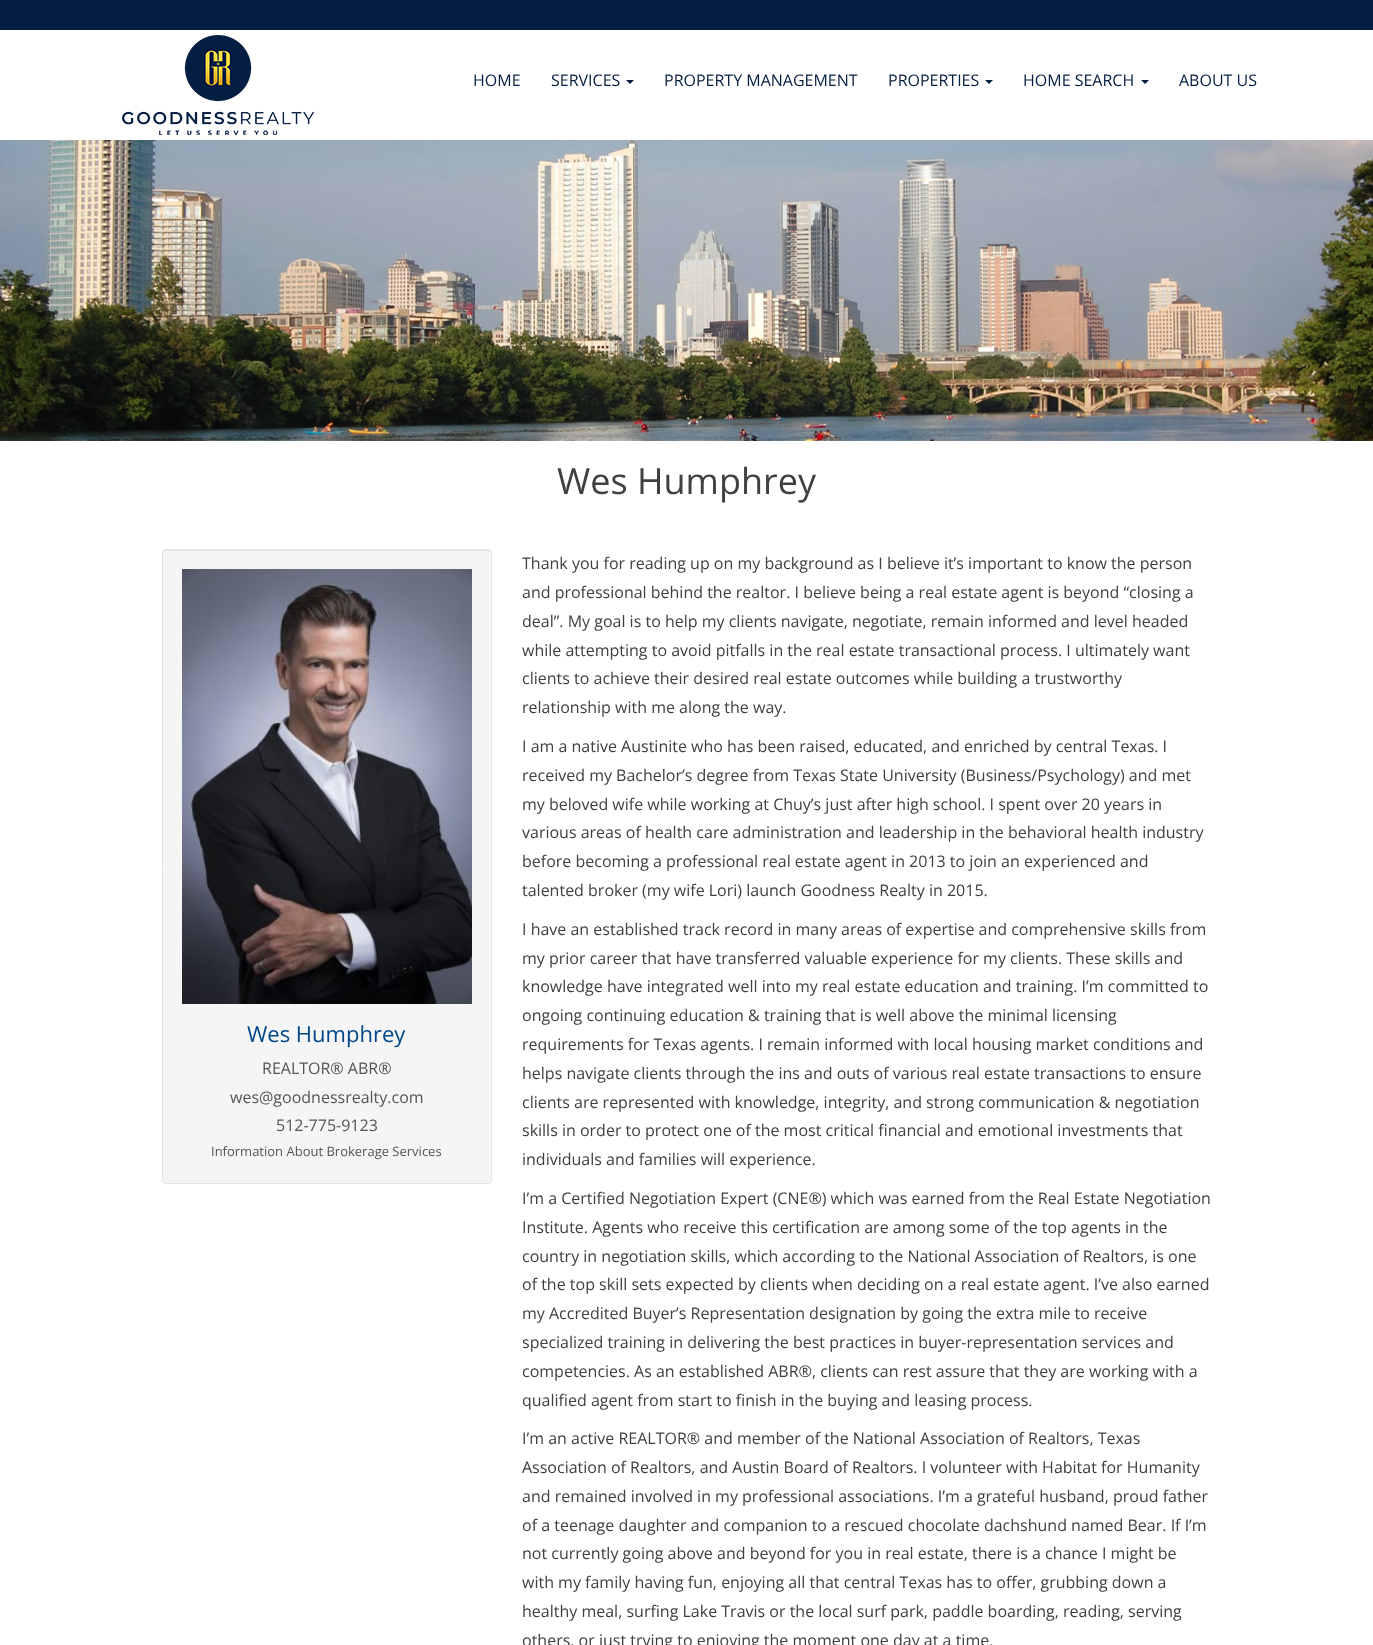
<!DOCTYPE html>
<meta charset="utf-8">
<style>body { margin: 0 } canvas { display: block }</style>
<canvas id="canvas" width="1373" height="1645"></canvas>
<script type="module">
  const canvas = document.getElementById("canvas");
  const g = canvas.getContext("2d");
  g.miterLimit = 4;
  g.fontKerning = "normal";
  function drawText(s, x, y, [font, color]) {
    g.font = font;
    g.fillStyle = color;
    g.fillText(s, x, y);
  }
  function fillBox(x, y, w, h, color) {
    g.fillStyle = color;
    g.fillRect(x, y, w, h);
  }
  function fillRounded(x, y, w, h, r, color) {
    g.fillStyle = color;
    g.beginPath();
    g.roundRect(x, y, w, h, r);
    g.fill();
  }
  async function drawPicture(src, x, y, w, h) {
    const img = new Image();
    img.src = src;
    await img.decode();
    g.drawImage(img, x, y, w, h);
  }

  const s1 = ["16px Open Sans", "#041E42"];
  const s2 = ["36px Open Sans", "#404040"];
  const s3 = ["22px Open Sans", "#004789"];
  const s4 = ["16px Open Sans", "#555555"];
  const s5 = ["13px Open Sans", "#555555"];
  const s6 = ["16px Open Sans", "#404040"];

  fillBox(0, 0, 1373, 1645, "#FFFFFF");
  fillBox(0, 0, 1373, 30, "#041E42");
  await drawPicture("pic1.png", 122, 35, 192, 100);
  drawText("HOME", 473, 86, s1);
  drawText("SERVICES", 551, 86, s1);
  g.beginPath();
  g.moveTo(626, 80);
  g.lineTo(634, 80);
  g.lineTo(630, 84);
  g.closePath();
  g.fill();
  drawText("PROPERTY MANAGEMENT", 664, 86, s1);
  drawText("PROPERTIES", 888, 86, s1);
  g.beginPath();
  g.moveTo(985, 80);
  g.lineTo(993, 80);
  g.lineTo(989, 84);
  g.closePath();
  g.fill();
  drawText("HOME SEARCH", 1023, 86, s1);
  g.beginPath();
  g.moveTo(1141, 80);
  g.lineTo(1149, 80);
  g.lineTo(1145, 84);
  g.closePath();
  g.fill();
  drawText("ABOUT US", 1179, 86, s1);
  await drawPicture("pic2.png", 0, 140, 1373, 301);
  drawText("Wes Humphrey", 557, 494, s2);
  fillRounded(162, 549, 330, 635, 4, "#F5F5F5");
  g.fillStyle = "#E9E9E9";
  g.beginPath();
  g.moveTo(166, 551);
  g.lineTo(488, 551);
  g.bezierCurveTo(490, 551, 491, 552, 491, 554);
  g.bezierCurveTo(491, 552, 490, 550, 488, 550);
  g.lineTo(166, 550);
  g.bezierCurveTo(164, 550, 163, 552, 163, 554);
  g.bezierCurveTo(163, 552, 164, 551, 166, 551);
  g.closePath();
  g.fill();
  g.beginPath();
  g.roundRect(162.5, 549.5, 329, 634, 3.5);
  g.strokeStyle = "#E3E3E3";
  g.stroke();
  await drawPicture("pic3.png", 182, 569, 290, 435);
  drawText("Wes Humphrey", 247, 1042, s3);
  drawText("REALTOR® ABR®", 262, 1074, s4);
  drawText("wes@goodnessrealty.com", 230, 1103, s4);
  drawText("512-775-9123", 276, 1131, s4);
  drawText("Information About Brokerage Services", 211, 1156, s5);
  drawText("Thank you for reading up on my background as I believe it’s important to know the person", 522, 569, s6);
  drawText("and professional behind the realtor. I believe being a real estate agent is beyond “closing a", 522, 598, s6);
  drawText("deal”. My goal is to help my clients navigate, negotiate, remain informed and level headed", 522, 627, s6);
  drawText("while attempting to avoid pitfalls in the real estate transactional process. I ultimately want", 522, 656, s6);
  drawText("clients to achieve their desired real estate outcomes while building a trustworthy", 522, 684, s6);
  drawText("relationship with me along the way.", 522, 713, s6);
  drawText("I am a native Austinite who has been raised, educated, and enriched by central Texas. I", 522, 752, s6);
  drawText("received my Bachelor’s degree from Texas State University (Business/Psychology) and met", 522, 781, s6);
  drawText("my beloved wife while working at Chuy’s just after high school. I spent over 20 years in", 522, 810, s6);
  drawText("various areas of health care administration and leadership in the behavioral health industry", 522, 838, s6);
  drawText("before becoming a professional real estate agent in 2013 to join an experienced and", 522, 867, s6);
  drawText("talented broker (my wife Lori) launch Goodness Realty in 2015.", 522, 896, s6);
  drawText("I have an established track record in many areas of expertise and comprehensive skills from", 522, 935, s6);
  drawText("my prior career that have transferred valuable experience for my clients. These skills and", 522, 964, s6);
  drawText("knowledge have integrated well into my real estate education and training. I’m committed to", 522, 992, s6);
  drawText("ongoing continuing education & training that is well above the minimal licensing", 522, 1021, s6);
  drawText("requirements for Texas agents. I remain informed with local housing market conditions and", 522, 1050, s6);
  drawText("helps navigate clients through the ins and outs of various real estate transactions to ensure", 522, 1079, s6);
  drawText("clients are represented with knowledge, integrity, and strong communication & negotiation", 522, 1108, s6);
  drawText("skills in order to protect one of the most critical financial and emotional investments that", 522, 1136, s6);
  drawText("individuals and families will experience.", 522, 1165, s6);
  drawText("I’m a Certified Negotiation Expert (CNE®) which was earned from the Real Estate Negotiation", 522, 1204, s6);
  drawText("Institute. Agents who receive this certification are among some of the top agents in the", 522, 1233, s6);
  drawText("country in negotiation skills, which according to the National Association of Realtors, is one", 522, 1262, s6);
  drawText("of the top skill sets expected by clients when deciding on a real estate agent. I’ve also earned", 522, 1290, s6);
  drawText("my Accredited Buyer’s Representation designation by going the extra mile to receive", 522, 1319, s6);
  drawText("specialized training in delivering the best practices in buyer-representation services and", 522, 1348, s6);
  drawText("competencies. As an established ABR®, clients can rest assure that they are working with a", 522, 1377, s6);
  drawText("qualified agent from start to finish in the buying and leasing process.", 522, 1406, s6);
  drawText("I’m an active REALTOR® and member of the National Association of Realtors, Texas", 522, 1444, s6);
  drawText("Association of Realtors, and Austin Board of Realtors. I volunteer with Habitat for Humanity", 522, 1473, s6);
  drawText("and remained involved in my professional associations. I’m a grateful husband, proud father", 522, 1502, s6);
  drawText("of a teenage daughter and companion to a rescued chocolate dachshund named Bear. If I’m", 522, 1531, s6);
  drawText("not currently going above and beyond for you in real estate, there is a chance I might be", 522, 1559, s6);
  drawText("with my family having fun, enjoying all that central Texas has to offer, grubbing down a", 522, 1588, s6);
  drawText("healthy meal, surfing Lake Travis or the local surf park, paddle boarding, reading, serving", 522, 1617, s6);
  drawText("others, or just trying to enjoying the moment one day at a time.", 522, 1646, s6);
</script>
